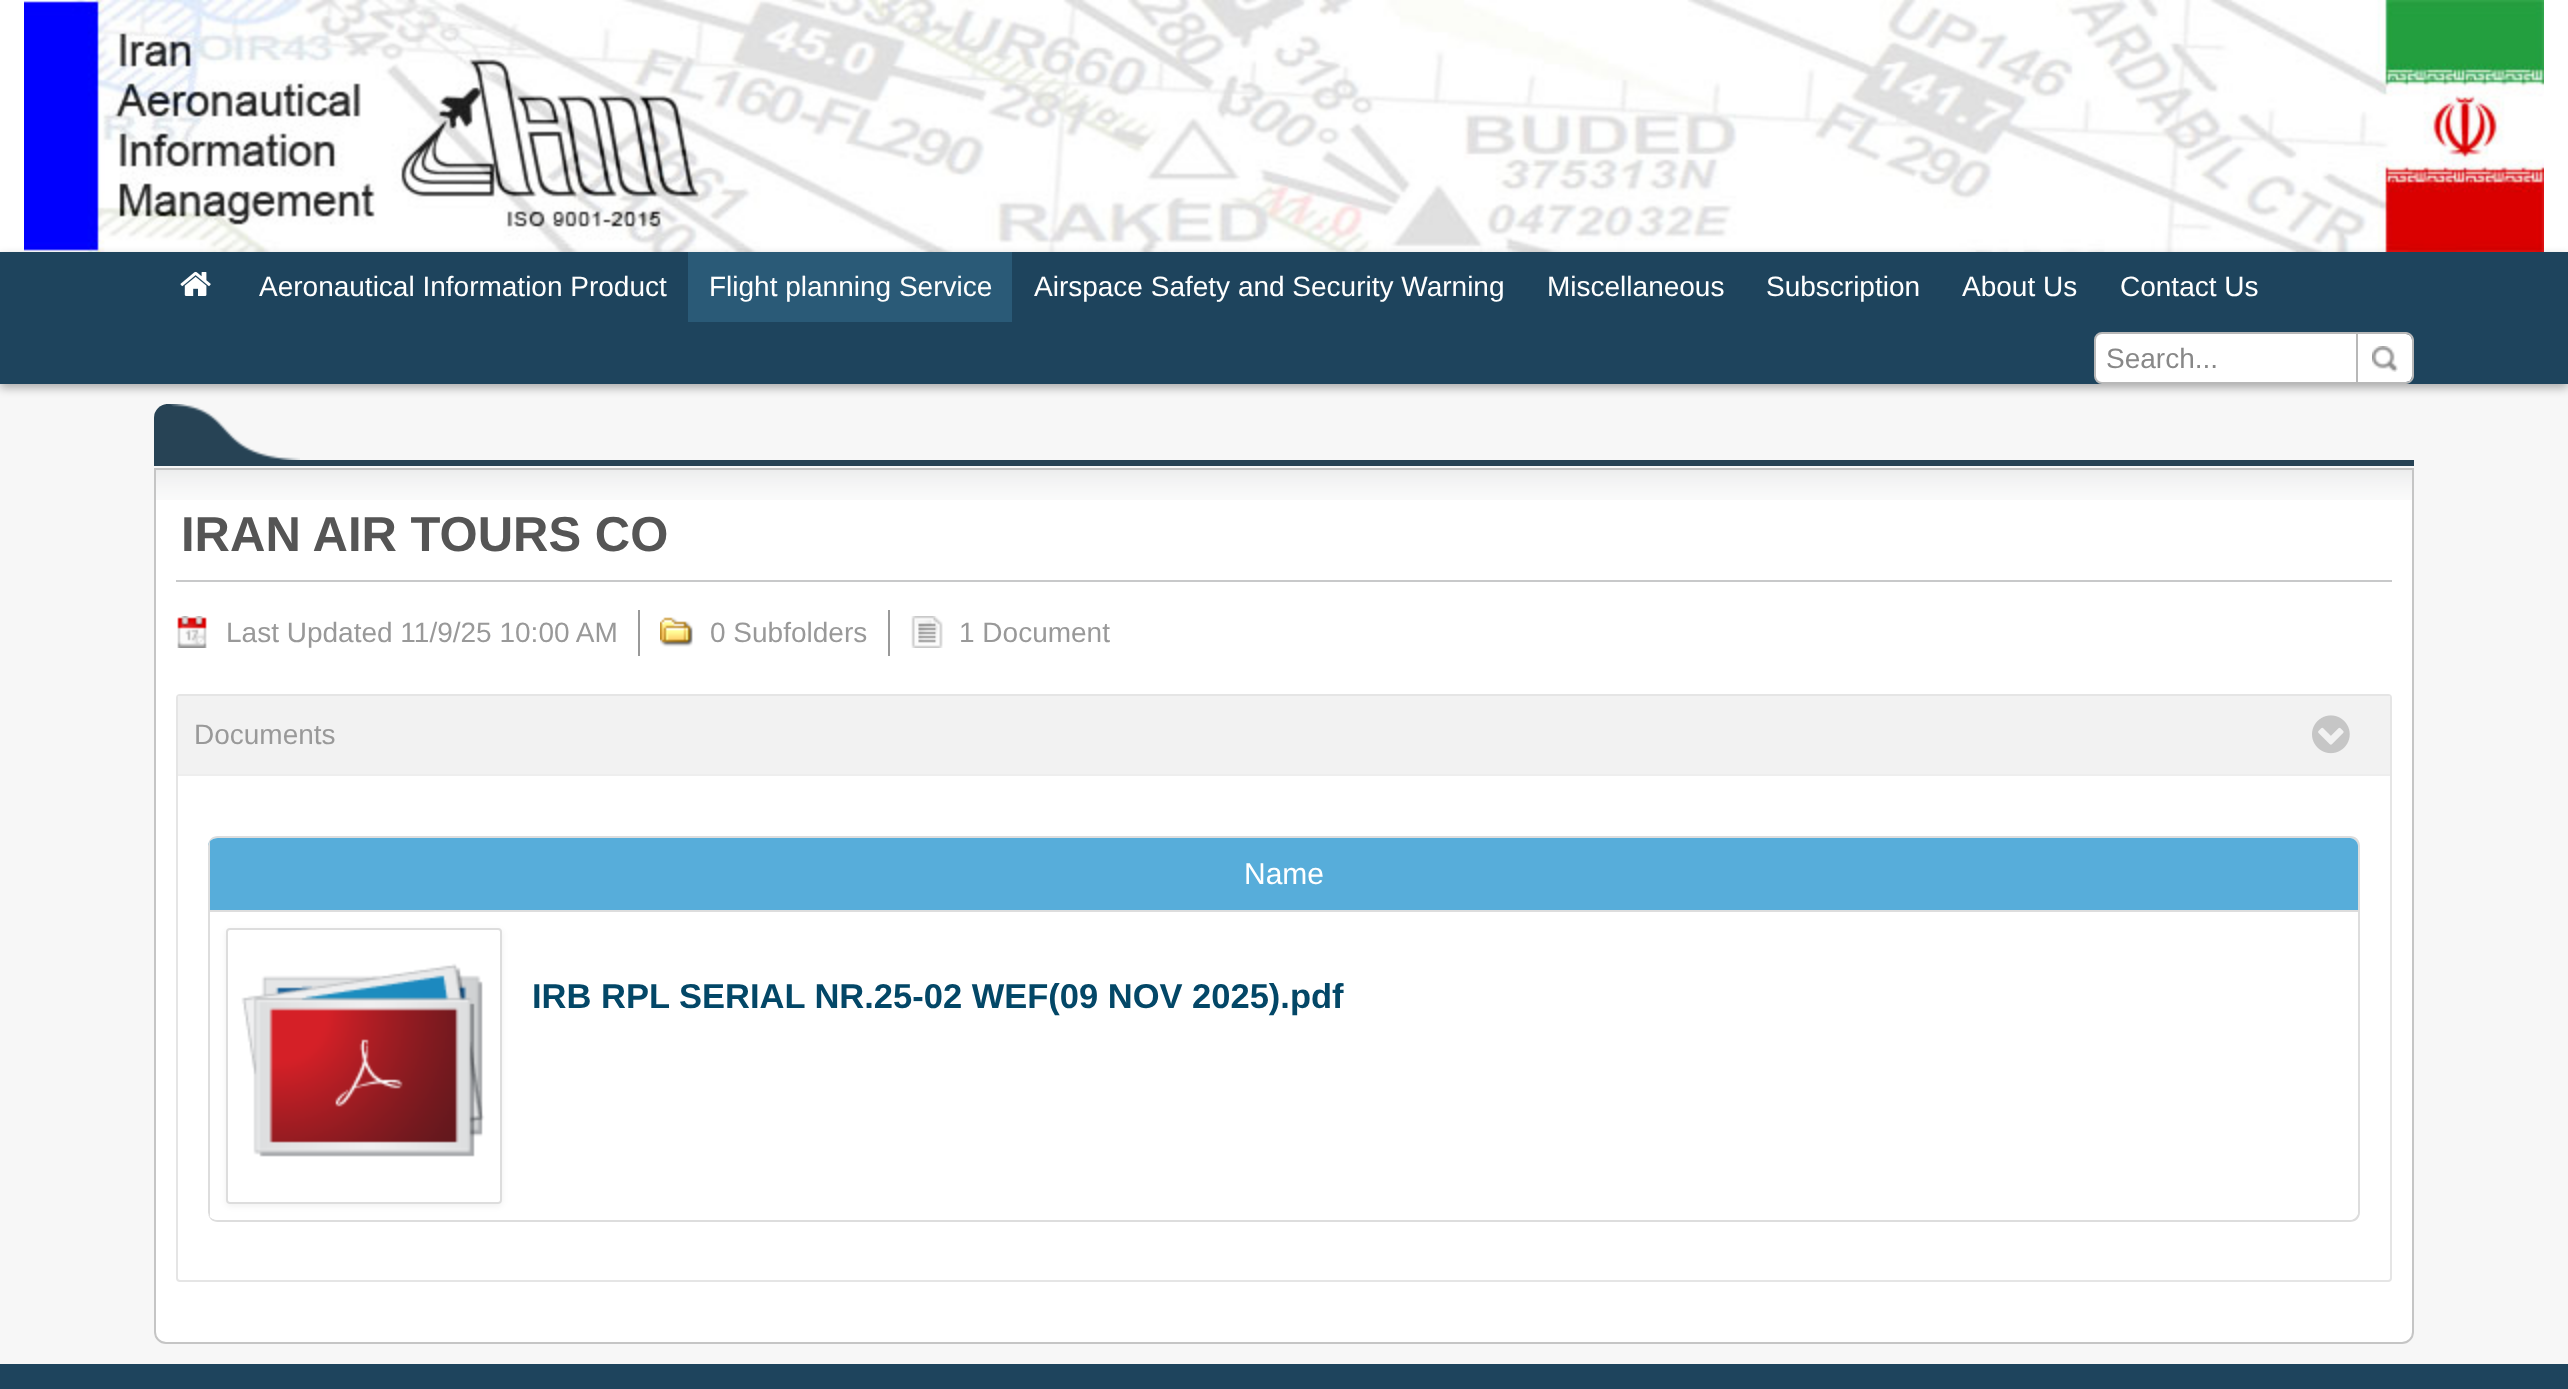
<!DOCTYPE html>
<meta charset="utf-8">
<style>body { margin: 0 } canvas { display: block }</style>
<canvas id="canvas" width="2568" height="1389"></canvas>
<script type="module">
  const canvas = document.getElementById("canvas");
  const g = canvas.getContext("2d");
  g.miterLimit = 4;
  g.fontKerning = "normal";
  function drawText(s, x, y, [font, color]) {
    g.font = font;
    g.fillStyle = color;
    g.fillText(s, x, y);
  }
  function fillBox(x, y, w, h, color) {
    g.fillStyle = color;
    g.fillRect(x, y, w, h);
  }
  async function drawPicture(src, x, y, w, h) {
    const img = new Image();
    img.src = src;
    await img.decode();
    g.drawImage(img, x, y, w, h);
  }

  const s1 = ["28px Liberation Sans", "#FFFFFF"];
  const s2 = ["28px Liberation Sans", "#888888"];
  const s3 = ["bold 49px Liberation Sans", "#555555"];
  const s4 = ["28px Liberation Sans", "#999999"];
  const s5 = ["30px Liberation Sans", "#FFFFFF"];
  const s6 = ["bold 34.5px Liberation Sans", "#034767"];

  fillBox(0, 0, 2568, 1389, "#F7F7F7");
  fillBox(0, 0, 2568, 252, "#FFFFFF");
  await drawPicture("pic1.png", 24, 0, 2520, 252);
  g.fillStyle = "rgba(0, 0, 0, 0.3)";
  g.filter = "blur(5px)";
  g.beginPath();
  g.rect(0, 256, 2568, 132);
  g.fill();
  g.filter = "none";
  fillBox(0, 252, 2568, 132, "#1E445D");
  await drawPicture("pic2.png", 180, 271, 31, 25);
  drawText("Aeronautical Information Product", 259, 296, s1);
  fillBox(688, 252, 324, 70, "#2A5A77");
  drawText("Flight planning Service", 709, 296, s1);
  drawText("Airspace Safety and Security Warning", 1034, 296, s1);
  drawText("Miscellaneous", 1547, 296, s1);
  drawText("Subscription", 1766, 296, s1);
  drawText("About Us", 1962, 296, s1);
  drawText("Contact Us", 2120, 296, s1);
  g.beginPath();
  g.roundRect(2095, 333, 262, 50, [7, 0, 0, 7]);
  g.fill();
  g.strokeStyle = "#B8B8B8";
  g.lineWidth = 2;
  g.stroke();
  drawText("Search...", 2106, 368, s2);
  g.fillStyle = "#FFFFFF";
  g.beginPath();
  g.roundRect(2358, 334, 54, 48, [0, 6, 6, 0]);
  g.fill();
  await drawPicture("pic3.png", 2372, 346, 26, 26);
  g.fillStyle = "#B8B8B8";
  g.beginPath();
  g.moveTo(2358, 332);
  g.lineTo(2406, 332);
  g.bezierCurveTo(2410, 332, 2414, 336, 2414, 340);
  g.lineTo(2414, 376);
  g.bezierCurveTo(2414, 380, 2410, 384, 2406, 384);
  g.lineTo(2358, 384);
  g.closePath();
  g.moveTo(2358, 334);
  g.lineTo(2406, 334);
  g.bezierCurveTo(2409, 334, 2412, 337, 2412, 340);
  g.lineTo(2412, 376);
  g.bezierCurveTo(2412, 379, 2409, 382, 2406, 382);
  g.lineTo(2358, 382);
  g.closePath();
  g.fill("evenodd");
  fillBox(154, 460, 2260, 6, "#274355");
  g.beginPath();
  g.roundRect(154, 404, 20, 56, [14, 6, 0, 0]);
  g.fill();
  await drawPicture("pic4.png", 166, 404, 134, 56);
  g.fillStyle = "#FFFFFF";
  g.beginPath();
  g.roundRect(154, 468, 2260, 876, [0, 0, 12, 12]);
  g.fill();
  await drawPicture("pic5.png", 156, 470, 2256, 30);
  g.beginPath();
  g.roundRect(155, 469, 2258, 874, [0, 0, 11, 11]);
  g.strokeStyle = "#C5C5C5";
  g.stroke();
  fillBox(176, 580, 2216, 2, "#C8C9CA");
  drawText("IRAN AIR TOURS CO", 181, 551, s3);
  await drawPicture("pic6.png", 177, 616, 30, 32);
  fillBox(638, 610, 2, 46, "#999999");
  drawText("Last Updated 11/9/25 10:00 AM", 226, 642, s4);
  await drawPicture("pic7.png", 660, 617, 33, 30);
  fillBox(888, 610, 2, 46, "#999999");
  drawText("0 Subfolders", 710, 642, s4);
  await drawPicture("pic8.png", 911, 616, 32, 32);
  drawText("1 Document", 959, 642, s4);
  g.beginPath();
  g.roundRect(177, 695, 2214, 586, 3);
  g.strokeStyle = "#E5E5E5";
  g.stroke();
  fillBox(178, 696, 2212, 78, "#F2F2F2");
  drawText("Documents", 194, 744, s4);
  await drawPicture("pic9.png", 2312, 715, 38, 39);
  fillBox(178, 774, 2212, 2, "#EEEEEE");
  g.fillStyle = "#DDDDDD";
  g.beginPath();
  g.moveTo(218, 836);
  g.lineTo(2350, 836);
  g.bezierCurveTo(2356, 836, 2360, 840, 2360, 846);
  g.lineTo(2360, 1212);
  g.bezierCurveTo(2360, 1218, 2356, 1222, 2350, 1222);
  g.lineTo(218, 1222);
  g.bezierCurveTo(212, 1222, 208, 1218, 208, 1212);
  g.lineTo(208, 846);
  g.bezierCurveTo(208, 840, 212, 836, 218, 836);
  g.closePath();
  g.moveTo(218, 838);
  g.lineTo(2350, 838);
  g.bezierCurveTo(2354, 838, 2358, 842, 2358, 846);
  g.lineTo(2358, 1212);
  g.bezierCurveTo(2358, 1216, 2354, 1220, 2350, 1220);
  g.lineTo(218, 1220);
  g.bezierCurveTo(212, 1220, 208, 1216, 208, 1212);
  g.lineTo(208, 846);
  g.bezierCurveTo(208, 842, 212, 838, 218, 838);
  g.closePath();
  g.fill("evenodd");
  g.fillStyle = "#57ADDA";
  g.beginPath();
  g.moveTo(218, 838);
  g.bezierCurveTo(212, 838, 208, 842, 208, 846);
  g.lineTo(208, 910);
  g.lineTo(2358, 910);
  g.lineTo(2358, 846);
  g.bezierCurveTo(2358, 842, 2354, 838, 2350, 838);
  g.closePath();
  g.fill();
  g.fillStyle = "#DDDDDD";
  g.beginPath();
  g.moveTo(208, 846);
  g.lineTo(208, 910);
  g.lineTo(210, 910);
  g.lineTo(210, 841);
  g.bezierCurveTo(209, 843, 208, 844, 208, 846);
  g.closePath();
  g.fill();
  drawText("Name", 1244, 884, s5);
  g.beginPath();
  g.moveTo(208, 910);
  g.lineTo(208, 1212);
  g.bezierCurveTo(208, 1216, 212, 1220, 218, 1220);
  g.lineTo(2350, 1220);
  g.bezierCurveTo(2354, 1220, 2358, 1216, 2358, 1212);
  g.lineTo(2358, 910);
  g.closePath();
  g.fill();
  fillBox(208, 910, 2150, 2, "#DDDDDD");
  g.beginPath();
  g.moveTo(208, 910);
  g.lineTo(208, 1212);
  g.bezierCurveTo(208, 1214, 209, 1215, 210, 1217);
  g.lineTo(210, 910);
  g.closePath();
  g.fill();
  g.save();
  g.beginPath();
  g.moveTo(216, 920);
  g.lineTo(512, 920);
  g.lineTo(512, 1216);
  g.lineTo(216, 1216);
  g.closePath();
  g.moveTo(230, 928);
  g.lineTo(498, 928);
  g.bezierCurveTo(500, 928, 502, 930, 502, 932);
  g.lineTo(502, 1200);
  g.bezierCurveTo(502, 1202, 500, 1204, 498, 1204);
  g.lineTo(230, 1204);
  g.bezierCurveTo(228, 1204, 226, 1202, 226, 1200);
  g.lineTo(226, 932);
  g.bezierCurveTo(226, 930, 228, 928, 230, 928);
  g.closePath();
  g.clip("evenodd");
  g.fillStyle = "rgba(0, 0, 0, 0.06)";
  g.filter = "blur(3px)";
  g.beginPath();
  g.roundRect(226, 930, 276, 276, 4);
  g.fill();
  g.filter = "none";
  g.restore();
  g.beginPath();
  g.roundRect(227, 929, 274, 274, 3);
  g.strokeStyle = "#DDDDDD";
  g.stroke();
  await drawPicture("pic10.png", 241, 963, 244, 194);
  drawText("IRB RPL SERIAL NR.25-02 WEF(09 NOV 2025).pdf", 532, 1008, s6);
  fillBox(0, 1364, 2568, 25, "#1E445D");
</script>
